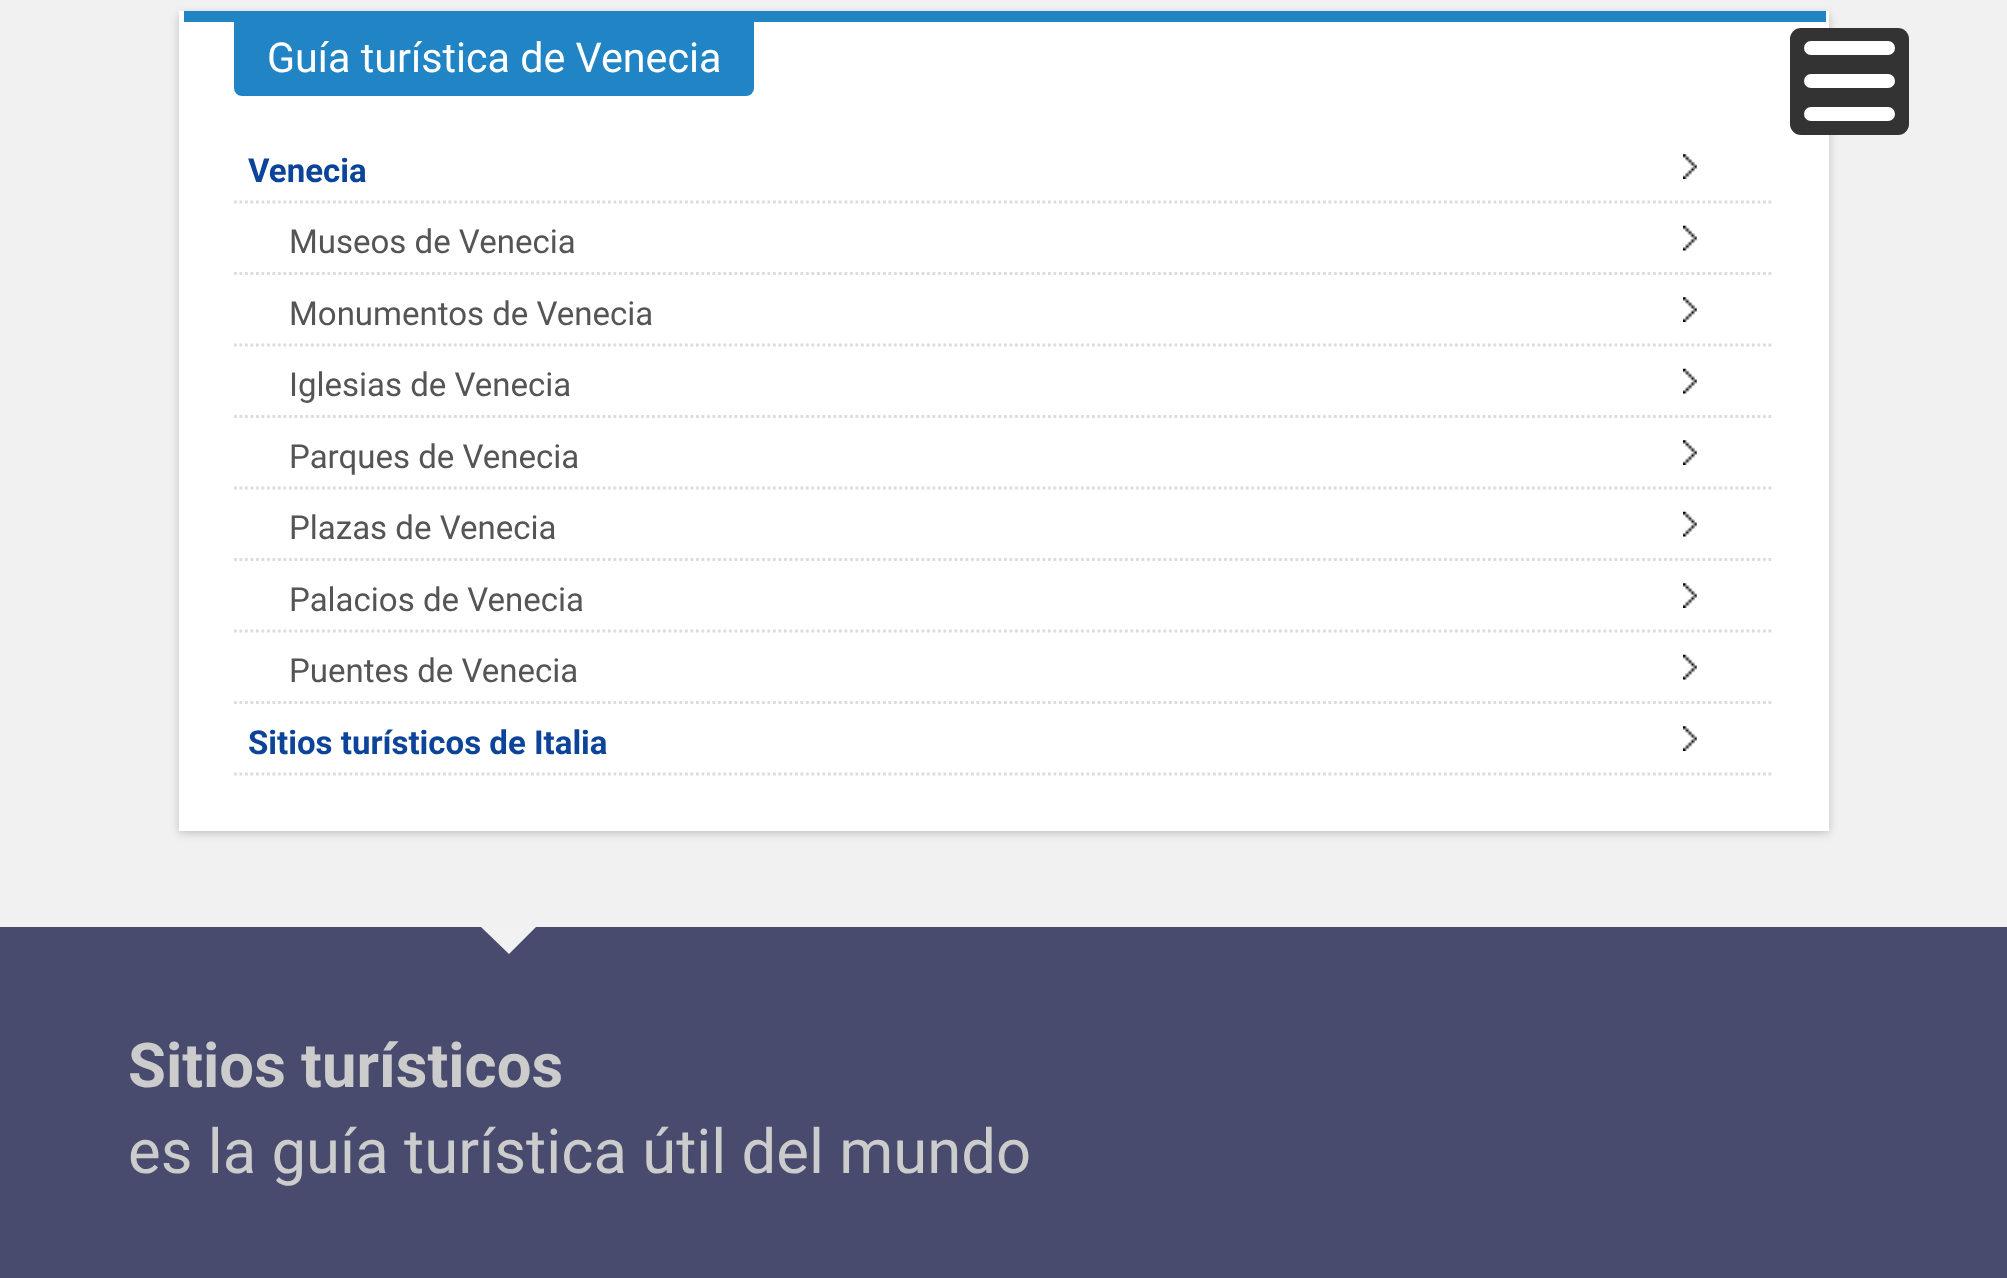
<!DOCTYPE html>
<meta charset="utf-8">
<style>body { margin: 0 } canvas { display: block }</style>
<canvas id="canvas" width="2007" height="1278"></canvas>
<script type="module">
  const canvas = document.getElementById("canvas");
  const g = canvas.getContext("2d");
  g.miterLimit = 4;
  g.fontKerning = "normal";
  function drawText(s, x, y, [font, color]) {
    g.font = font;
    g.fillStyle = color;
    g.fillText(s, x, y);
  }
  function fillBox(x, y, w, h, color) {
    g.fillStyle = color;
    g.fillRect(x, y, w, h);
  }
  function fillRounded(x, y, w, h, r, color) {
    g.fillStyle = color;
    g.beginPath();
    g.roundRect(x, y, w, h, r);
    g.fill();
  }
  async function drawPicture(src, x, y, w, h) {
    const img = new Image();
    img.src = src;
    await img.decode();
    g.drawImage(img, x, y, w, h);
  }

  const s1 = ["41.25px Roboto", "#FFFFFF"];
  const s2 = ["bold 33px Roboto", "#0C4499"];
  const s3 = ["33px Roboto", "#555555"];
  const s4 = ["bold 61.6px Roboto", "#CCCCCC"];
  const s5 = ["61.6px Roboto", "#CCCCCC"];

  fillBox(0, 0, 2007, 1278, "#F1F1F1");
  g.fillStyle = "rgba(0, 0, 0, 0.2)";
  g.filter = "blur(4px)";
  g.beginPath();
  g.rect(179, 14, 1650, 819);
  g.fill();
  g.filter = "none";
  fillBox(179, 11, 1650, 820, "#FFFFFF");
  fillBox(184, 11, 1642, 11, "#2185C5");
  g.beginPath();
  g.roundRect(234, 22, 520, 74, [0, 0, 8, 8]);
  g.fill();
  drawText("Guía turística de Venecia", 267, 72, s1);
  await drawPicture("pic1.png", 1683, 154, 14, 25);
  g.beginPath();
  g.moveTo(234, 202);
  g.lineTo(1774, 202);
  g.strokeStyle = "#DCDCDC";
  g.lineWidth = 2.8;
  g.setLineDash([2.75, 2.75]);
  g.stroke();
  drawText("Venecia", 248, 182, s2);
  await drawPicture("pic2.png", 1683, 225, 14, 26);
  g.beginPath();
  g.moveTo(234, 273.5);
  g.lineTo(1774, 273.5);
  g.stroke();
  drawText("Museos de Venecia", 289, 253, s3);
  await drawPicture("pic1.png", 1683, 297, 14, 25);
  g.beginPath();
  g.moveTo(234, 345);
  g.lineTo(1774, 345);
  g.stroke();
  drawText("Monumentos de Venecia", 289, 325, s3);
  await drawPicture("pic2.png", 1683, 368, 14, 26);
  g.beginPath();
  g.moveTo(234, 416.5);
  g.lineTo(1774, 416.5);
  g.stroke();
  drawText("Iglesias de Venecia", 289, 396, s3);
  await drawPicture("pic1.png", 1683, 440, 14, 25);
  g.beginPath();
  g.moveTo(234, 488);
  g.lineTo(1774, 488);
  g.stroke();
  drawText("Parques de Venecia", 289, 468, s3);
  await drawPicture("pic2.png", 1683, 511, 14, 26);
  g.beginPath();
  g.moveTo(234, 559.5);
  g.lineTo(1774, 559.5);
  g.stroke();
  drawText("Plazas de Venecia", 289, 539, s3);
  await drawPicture("pic1.png", 1683, 583, 14, 25);
  g.beginPath();
  g.moveTo(234, 631);
  g.lineTo(1774, 631);
  g.stroke();
  drawText("Palacios de Venecia", 289, 611, s3);
  await drawPicture("pic2.png", 1683, 654, 14, 26);
  g.beginPath();
  g.moveTo(234, 702.5);
  g.lineTo(1774, 702.5);
  g.stroke();
  drawText("Puentes de Venecia", 289, 682, s3);
  await drawPicture("pic3.png", 1683, 726, 14, 25);
  g.beginPath();
  g.moveTo(234, 774);
  g.lineTo(1774, 774);
  g.stroke();
  drawText("Sitios turísticos de Italia", 248, 754, s2);
  fillBox(0, 927, 2007, 351, "#484B6D");
  g.fillStyle = "#F2F2F2";
  g.beginPath();
  g.moveTo(481, 927);
  g.lineTo(536, 927);
  g.lineTo(509, 954);
  g.closePath();
  g.fill();
  drawText("Sitios turísticos", 128, 1087, s4);
  drawText("es la guía turística útil del mundo", 128, 1173, s5);
  fillRounded(1790, 28, 119, 107, 11, "#333333");
  fillRounded(1804, 41, 91, 14, 7, "#FFFFFF");
  fillRounded(1804, 74, 91, 14, 7, "#FFFFFF");
  fillRounded(1804, 107, 91, 14, 7, "#FFFFFF");
</script>
